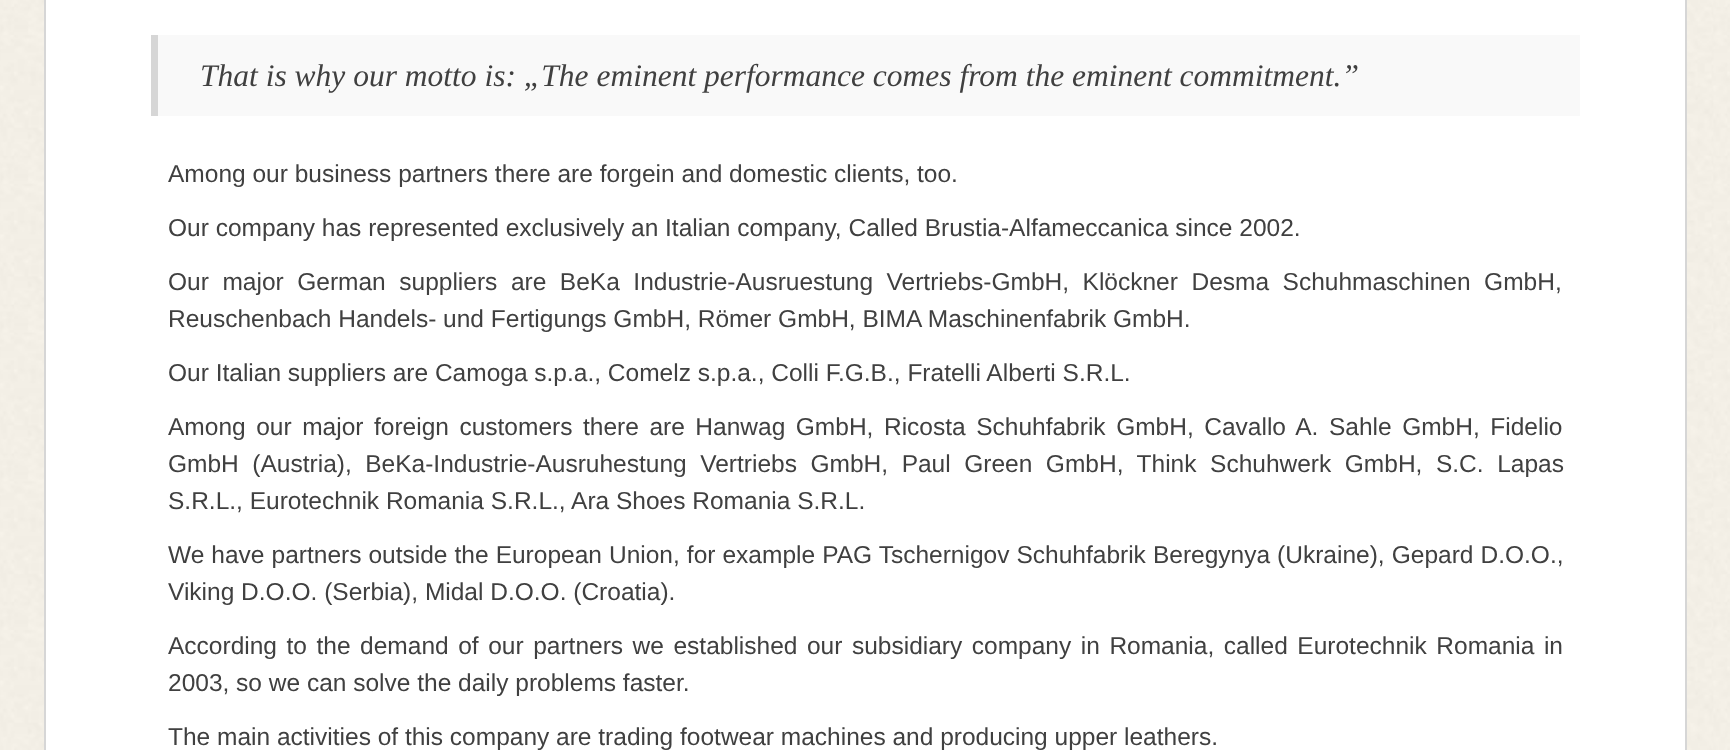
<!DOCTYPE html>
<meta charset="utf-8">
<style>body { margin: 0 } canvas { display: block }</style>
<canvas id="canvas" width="1730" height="750"></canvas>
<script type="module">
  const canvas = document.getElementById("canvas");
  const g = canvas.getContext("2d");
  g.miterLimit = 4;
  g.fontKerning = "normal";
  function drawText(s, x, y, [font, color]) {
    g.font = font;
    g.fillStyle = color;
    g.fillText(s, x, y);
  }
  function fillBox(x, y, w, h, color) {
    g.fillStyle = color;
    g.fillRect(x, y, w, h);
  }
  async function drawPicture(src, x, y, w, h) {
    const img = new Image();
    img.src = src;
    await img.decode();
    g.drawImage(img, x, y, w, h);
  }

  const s1 = ["italic 31.5px Liberation Serif", "#404040"];
  const s2 = ["24.5px Liberation Sans", "#404040"];

  fillBox(0, 0, 1730, 750, "#FFFFFF");
  await drawPicture("pic1.png", 0, 0, 1730, 750);
  g.beginPath();
  g.rect(45, -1, 1641, 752);
  g.fill();
  g.strokeStyle = "#D6D6D6";
  g.lineWidth = 2;
  g.stroke();
  fillBox(158, 35, 1422, 81, "#F9F9F9");
  fillBox(151, 35, 7, 81, "#D6D6D6");
  drawText("That is why our motto is: „The eminent performance comes from the eminent commitment.”", 200, 86, s1);
  drawText("Among our business partners there are forgein and domestic clients, too.", 168, 182, s2);
  drawText("Our company has represented exclusively an Italian company, Called Brustia-Alfameccanica since 2002.", 168, 236, s2);
  g.wordSpacing = "6.75px";
  drawText("Our major German suppliers are BeKa Industrie-Ausruestung Vertriebs-GmbH, Klöckner Desma Schuhmaschinen GmbH,", 168, 290, s2);
  g.wordSpacing = "0px";
  drawText("Reuschenbach Handels- und Fertigungs GmbH, Römer GmbH, BIMA Maschinenfabrik GmbH.", 168, 327, s2);
  drawText("Our Italian suppliers are Camoga s.p.a., Comelz s.p.a., Colli F.G.B., Fratelli Alberti S.R.L.", 168, 381, s2);
  g.wordSpacing = "3.75px";
  drawText("Among our major foreign customers there are Hanwag GmbH, Ricosta Schuhfabrik GmbH, Cavallo A. Sahle GmbH, Fidelio", 168, 435, s2);
  g.wordSpacing = "6.75px";
  drawText("GmbH (Austria), BeKa-Industrie-Ausruhestung Vertriebs GmbH, Paul Green GmbH, Think Schuhwerk GmbH, S.C. Lapas", 168, 472, s2);
  g.wordSpacing = "0px";
  drawText("S.R.L., Eurotechnik Romania S.R.L., Ara Shoes Romania S.R.L.", 168, 509, s2);
  g.wordSpacing = "0.25px";
  drawText("We have partners outside the European Union, for example PAG Tschernigov Schuhfabrik Beregynya (Ukraine), Gepard D.O.O.,", 168, 563, s2);
  g.wordSpacing = "0px";
  drawText("Viking D.O.O. (Serbia), Midal D.O.O. (Croatia).", 168, 600, s2);
  g.wordSpacing = "2.75px";
  drawText("According to the demand of our partners we established our subsidiary company in Romania, called Eurotechnik Romania in", 168, 654, s2);
  g.wordSpacing = "0px";
  drawText("2003, so we can solve the daily problems faster.", 168, 691, s2);
  drawText("The main activities of this company are trading footwear machines and producing upper leathers.", 168, 745, s2);
</script>
